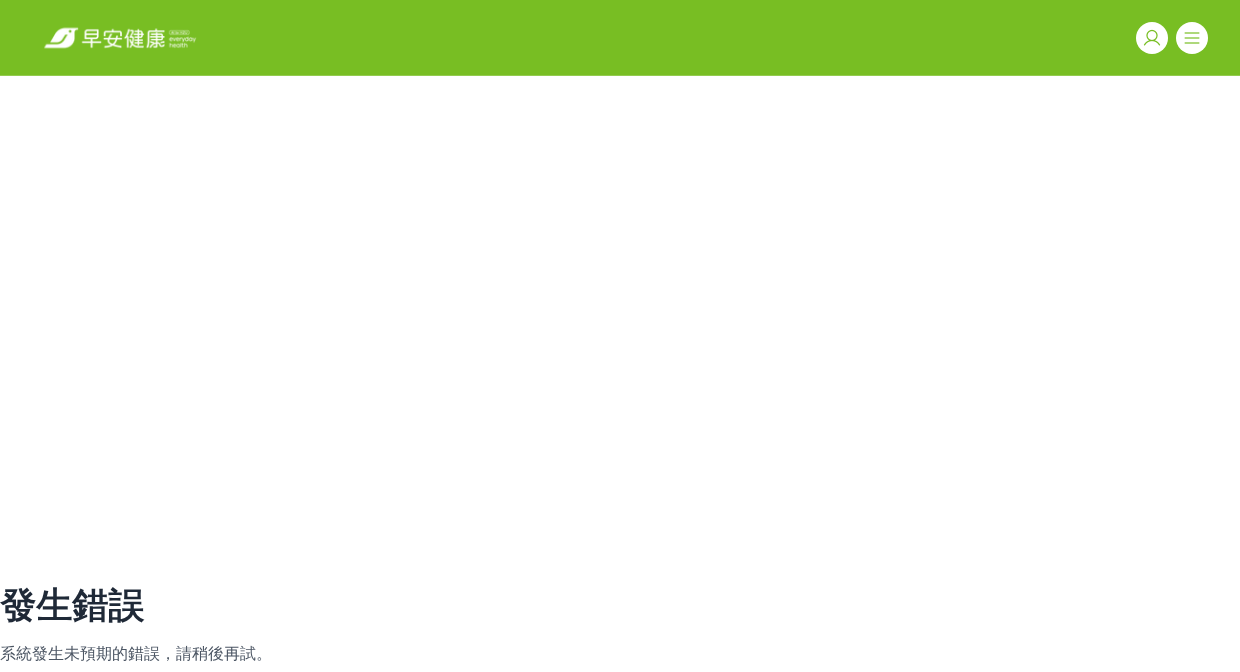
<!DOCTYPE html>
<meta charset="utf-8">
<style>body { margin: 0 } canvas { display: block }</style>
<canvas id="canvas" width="1240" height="672"></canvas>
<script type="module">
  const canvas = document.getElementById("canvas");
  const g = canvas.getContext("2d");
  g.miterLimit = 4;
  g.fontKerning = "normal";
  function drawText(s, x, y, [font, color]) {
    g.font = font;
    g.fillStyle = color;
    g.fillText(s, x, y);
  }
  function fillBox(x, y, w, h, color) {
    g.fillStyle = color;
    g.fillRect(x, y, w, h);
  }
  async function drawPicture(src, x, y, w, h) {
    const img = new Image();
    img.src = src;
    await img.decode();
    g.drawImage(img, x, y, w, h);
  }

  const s1 = ["bold 36px WenQuanYi Zen Hei", "#1F2937"];
  const s2 = ["500 16px WenQuanYi Zen Hei", "#4B5563"];

  fillBox(0, 0, 1240, 672, "#FFFFFF");
  fillBox(0, 0, 1240, 75, "#78BE23");
  fillBox(0, 75, 1240, 1, "#93CB4F");
  await drawPicture("pic1.png", 44, 27, 153, 22);
  g.fillStyle = "#FFFFFF";
  g.beginPath();
  g.arc(1152, 38, 16, 0, Math.PI * 2);
  g.fill();
  await drawPicture("pic2.png", 1143, 29, 18, 17);
  g.beginPath();
  g.arc(1192, 38, 16, 0, Math.PI * 2);
  g.fill();
  await drawPicture("pic3.png", 1184, 32, 16, 12);
  drawText("發生錯誤", 0, 618, s1);
  drawText("系統發生未預期的錯誤，請稍後再試。", 0, 659, s2);
</script>
